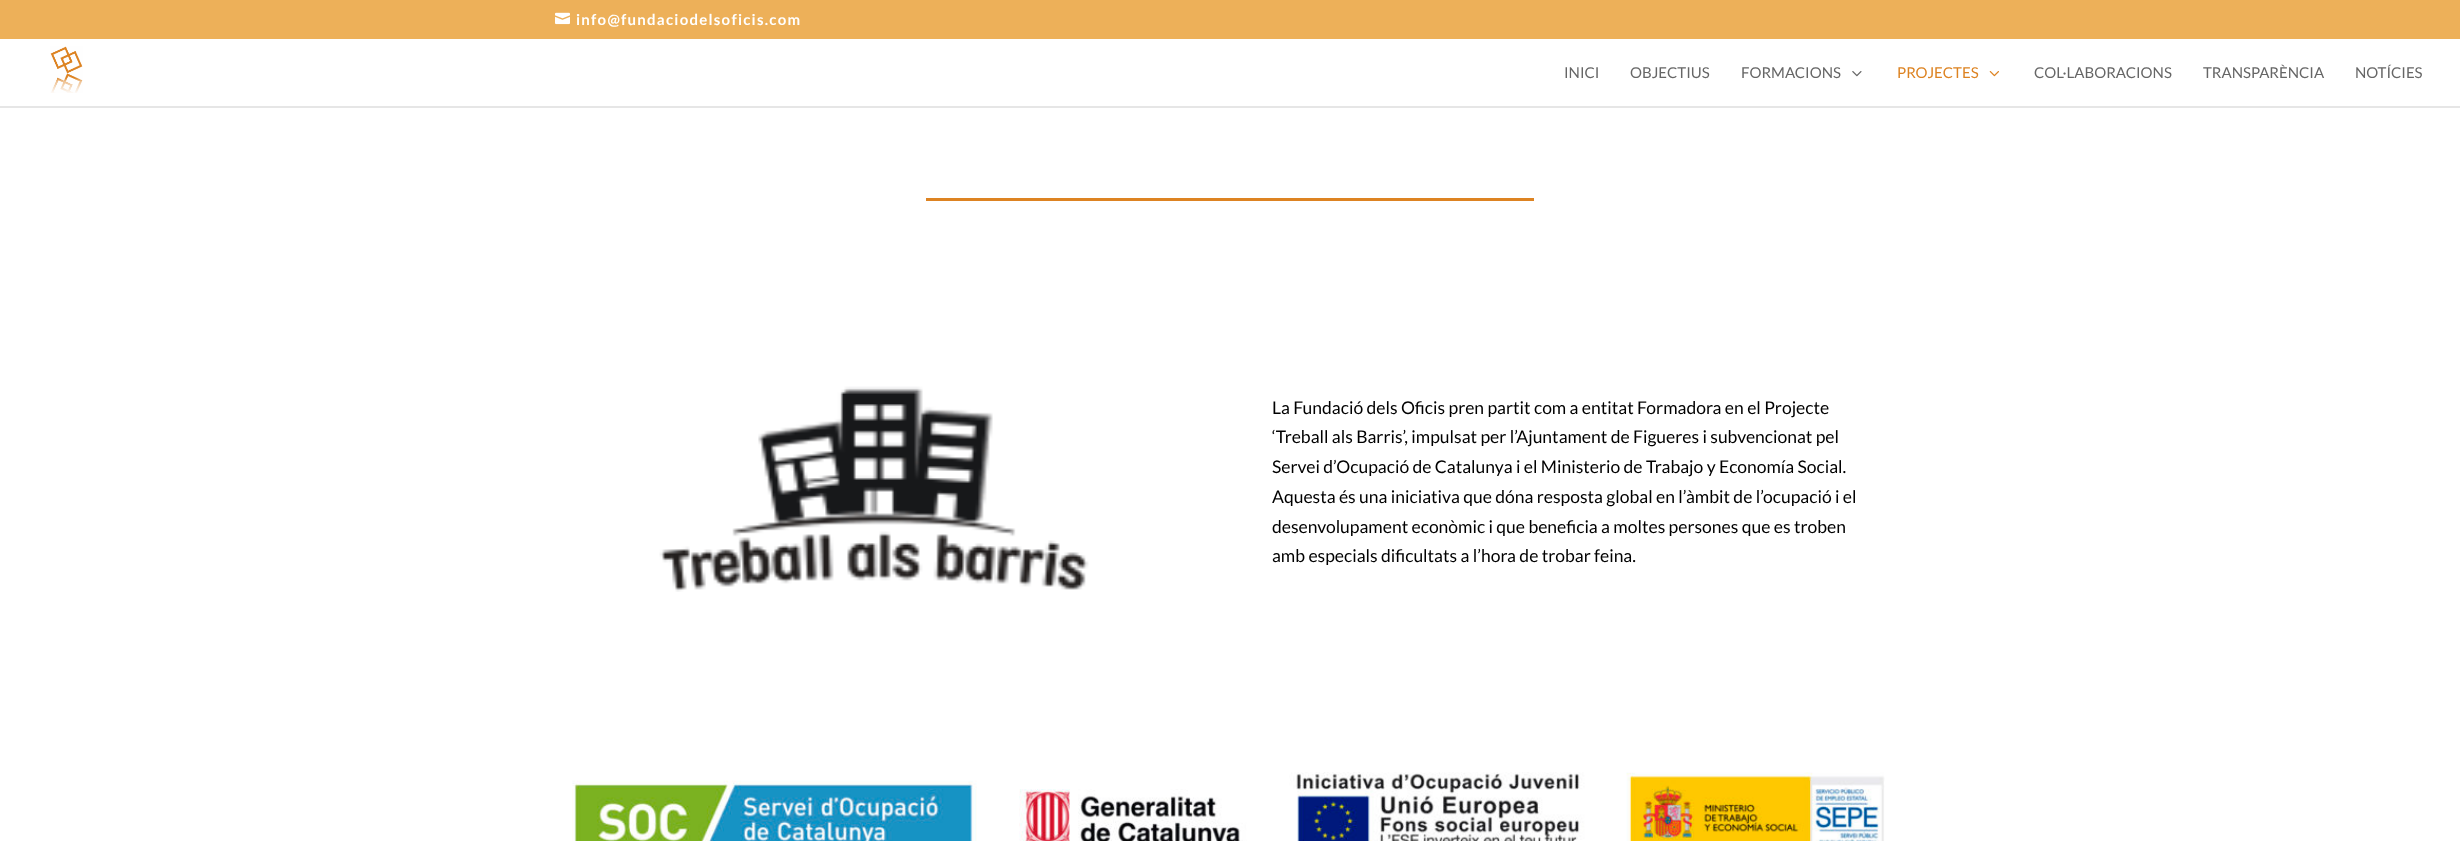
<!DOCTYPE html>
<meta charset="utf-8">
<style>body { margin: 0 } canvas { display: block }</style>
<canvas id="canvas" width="2460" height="841"></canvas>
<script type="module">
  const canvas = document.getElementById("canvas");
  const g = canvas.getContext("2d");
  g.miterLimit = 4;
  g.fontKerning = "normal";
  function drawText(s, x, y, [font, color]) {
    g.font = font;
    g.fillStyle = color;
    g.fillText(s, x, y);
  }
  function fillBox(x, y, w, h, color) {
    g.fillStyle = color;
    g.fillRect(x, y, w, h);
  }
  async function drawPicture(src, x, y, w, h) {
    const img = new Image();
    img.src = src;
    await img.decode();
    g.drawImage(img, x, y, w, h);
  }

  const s1 = ["bold 15px Lato", "#FFFFFF"];
  const s2 = ["15px Lato", "#666666"];
  const s3 = ["15px Lato", "#DD8322"];
  const s4 = ["17.5px Lato", "#000000"];

  fillBox(0, 0, 2460, 841, "#FFFFFF");
  fillBox(0, 0, 2460, 39, "#EDB059");
  await drawPicture("pic1.png", 555, 12, 15, 13);
  g.letterSpacing = "1.25px";
  drawText("info@fundaciodelsoficis.com", 576, 25, s1);
  fillBox(0, 106, 2460, 2, "#E6E6E6");
  await drawPicture("pic2.png", 50, 46, 33, 47);
  g.letterSpacing = "0px";
  drawText("INICI", 1564, 78, s2);
  drawText("OBJECTIUS", 1630, 78, s2);
  drawText("FORMACIONS", 1741, 78, s2);
  await drawPicture("pic3.png", 1852, 71, 10, 6);
  drawText("PROJECTES", 1897, 78, s3);
  await drawPicture("pic4.png", 1989, 71, 10, 6);
  drawText("COL·LABORACIONS", 2034, 78, s2);
  drawText("TRANSPARÈNCIA", 2203, 78, s2);
  drawText("NOTÍCIES", 2355, 78, s2);
  fillBox(926, 198, 608, 3, "#DD8322");
  await drawPicture("pic5.png", 659, 386, 430, 206);
  drawText("La Fundació dels Oficis pren partit com a entitat Formadora en el Projecte", 1272, 414, s4);
  drawText("‘Treball als Barris’, impulsat per l’Ajuntament de Figueres i subvencionat pel", 1272, 443, s4);
  drawText("Servei d’Ocupació de Catalunya i el Ministerio de Trabajo y Economía Social.", 1272, 473, s4);
  drawText("Aquesta és una iniciativa que dóna resposta global en l’àmbit de l’ocupació i el", 1272, 503, s4);
  drawText("desenvolupament econòmic i que beneficia a moltes persones que es troben", 1272, 533, s4);
  drawText("amb especials dificultats a l’hora de trobar feina.", 1272, 562, s4);
  await drawPicture("pic6.png", 572, 772, 1313, 69);
</script>
